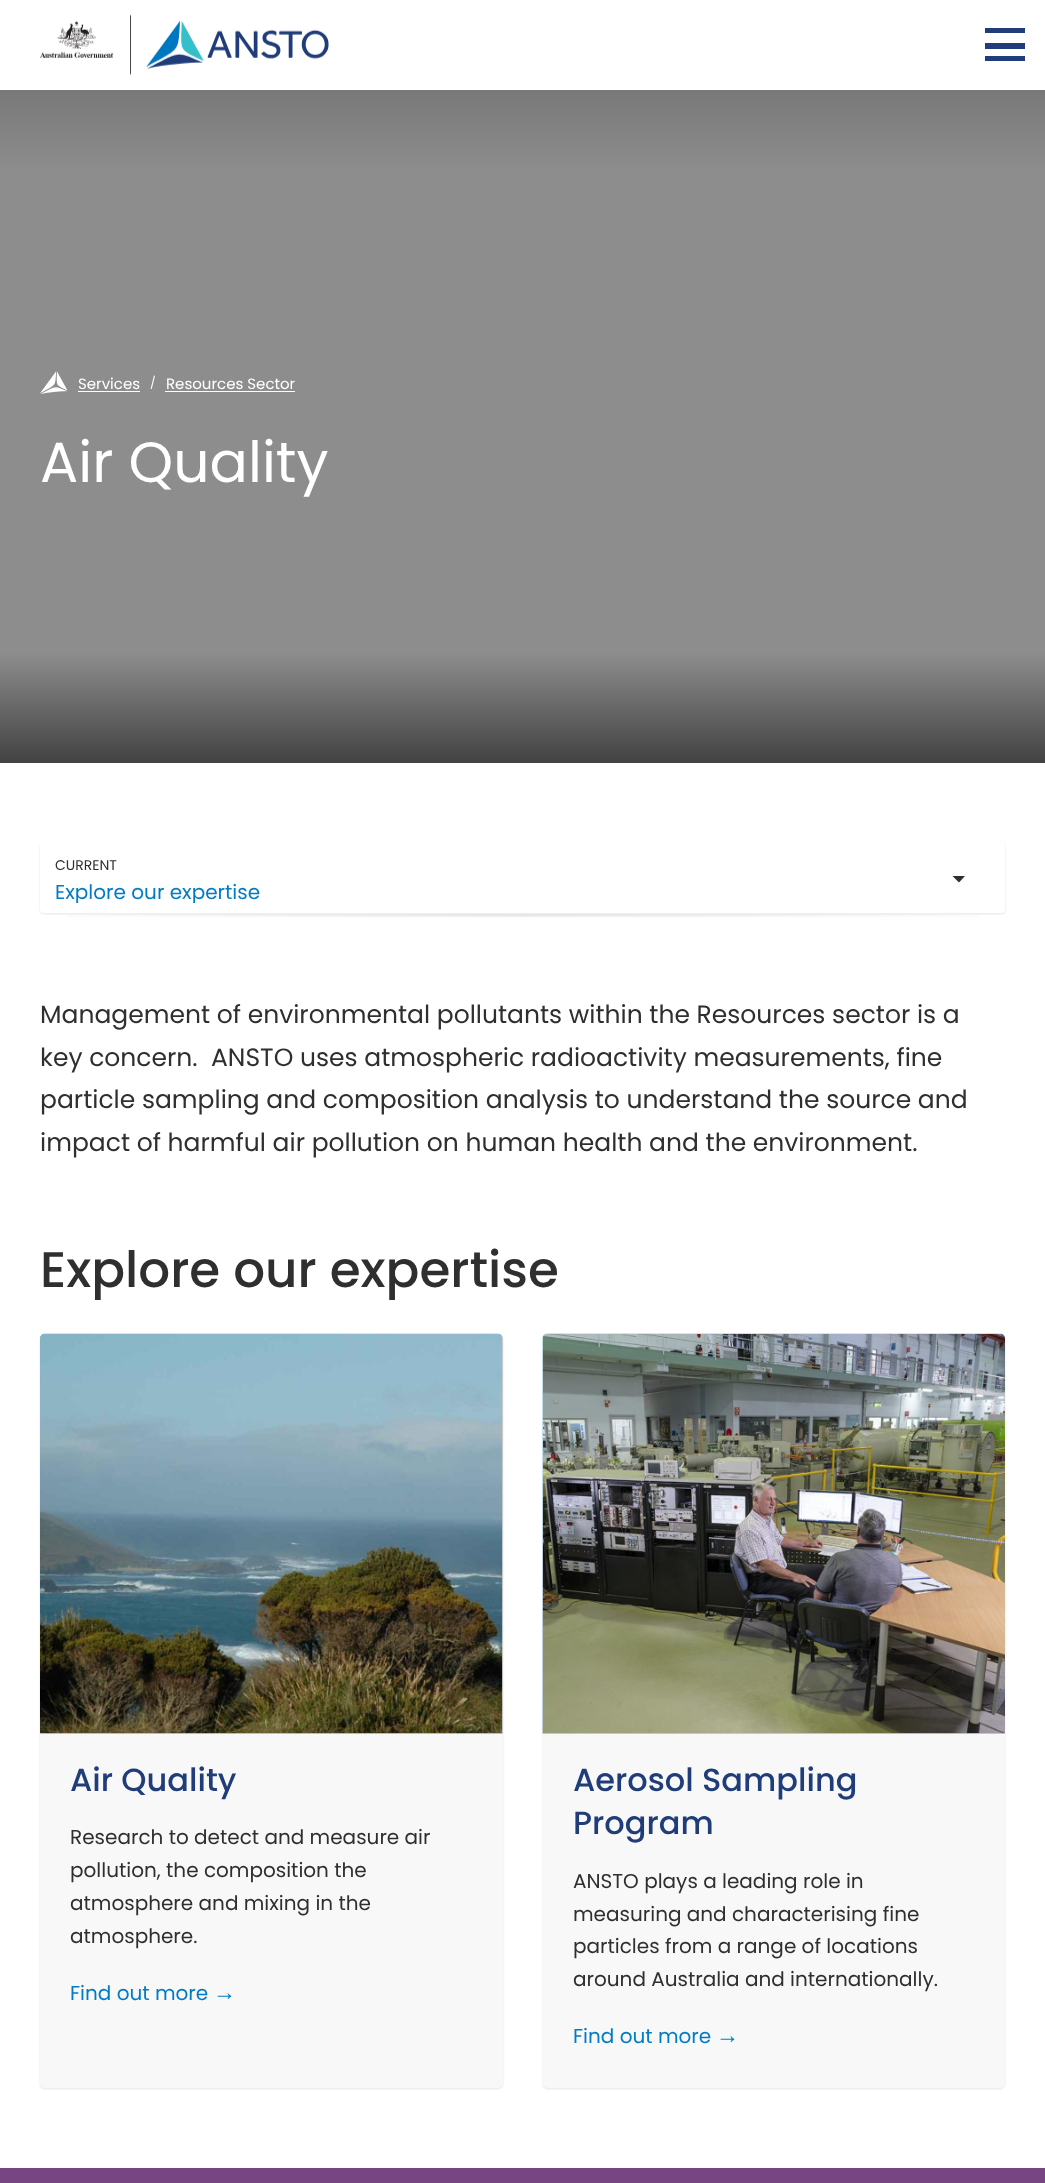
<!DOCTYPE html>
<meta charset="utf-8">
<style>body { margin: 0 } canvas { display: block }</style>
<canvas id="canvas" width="1045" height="2183"></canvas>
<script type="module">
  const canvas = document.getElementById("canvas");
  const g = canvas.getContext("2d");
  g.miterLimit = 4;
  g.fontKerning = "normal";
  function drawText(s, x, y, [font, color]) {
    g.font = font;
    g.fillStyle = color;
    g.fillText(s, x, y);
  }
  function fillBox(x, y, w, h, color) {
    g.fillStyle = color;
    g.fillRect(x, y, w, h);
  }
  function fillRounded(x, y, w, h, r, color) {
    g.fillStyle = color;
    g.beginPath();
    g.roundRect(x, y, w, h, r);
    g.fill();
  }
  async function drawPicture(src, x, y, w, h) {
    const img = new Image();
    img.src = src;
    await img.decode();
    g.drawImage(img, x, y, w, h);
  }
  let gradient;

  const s1 = ["15px Poppins", "#FFFFFF"];
  const s2 = ["12px Poppins", "#FFFFFF"];
  const s3 = ["56.75px Poppins", "#FFFFFF"];
  const s4 = ["14px Poppins", "#2F2F2F"];
  const s5 = ["20px Poppins", "#027BC5"];
  const s6 = ["25px Poppins", "#2F2F2F"];
  const s7 = ["500 50px Poppins", "#2F2F2F"];
  const s8 = ["500 32px Poppins", "#203D79"];
  const s9 = ["20px Poppins", "#2F2F2F"];
  const s10 = ["23px Liberation Sans", "#027BC5"];

  fillBox(0, 0, 1045, 2183, "#FFFFFF");
  await drawPicture("pic1.png", 40, 14, 289, 61);
  fillBox(985, 28, 40, 5, "#203D79");
  fillBox(985, 56, 40, 5, "#203D79");
  fillBox(985, 43, 40, 6, "#203D79");
  gradient = g.createLinearGradient(523, -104, 523, 170);
  gradient.addColorStop(0, "#464646");
  gradient.addColorStop(1, "#8D8D8D");
  g.fillStyle = gradient;
  g.fillRect(0, 90, 1045, 80);
  fillBox(0, 170, 1045, 483, "#8D8D8D");
  await drawPicture("pic2.png", 40, 371, 28, 23);
  drawText("Services", 78, 389, s1);
  fillBox(78, 391, 62, 1, "#FFFFFF");
  drawText("/", 150, 387, s2);
  drawText("Resources Sector", 166, 389, s1);
  fillBox(165, 391, 130, 1, "#FFFFFF");
  drawText("Air Quality", 40, 482, s3);
  gradient = g.createLinearGradient(523, 763, 523, 653);
  gradient.addColorStop(0, "#424242");
  gradient.addColorStop(1, "#8D8D8D");
  g.fillStyle = gradient;
  g.fillRect(0, 653, 1045, 110);
  g.fillStyle = "rgba(0, 0, 0, 0.1)";
  g.filter = "blur(1px)";
  g.beginPath();
  g.roundRect(40, 844, 965, 70, 4);
  g.fill();
  g.filter = "none";
  fillRounded(40, 843, 965, 70, 4, "#FFFFFF");
  drawText("CURRENT", 55, 870, s4);
  g.beginPath();
  g.moveTo(952.5, 876);
  g.lineTo(965, 876);
  g.lineTo(959, 882.5);
  g.closePath();
  g.fill();
  g.save();
  g.beginPath();
  g.rect(55, 876, 895, 27);
  g.clip();
  drawText("Explore our expertise", 55, 899, s5);
  g.restore();
  gradient = g.createRadialGradient(523, 915, 0, 523, 915, 531);
  gradient.addColorStop(0, "rgba(125, 125, 125, 0.15)");
  gradient.addColorStop(1, "rgba(125, 125, 125, 0)");
  g.fillStyle = gradient;
  g.fillRect(67, 914, 912, 3);
  drawText("Management of environmental pollutants within the Resources sector is a", 40, 1023, s6);
  drawText("key concern.", 40, 1066, s6);
  drawText("ANSTO uses atmospheric radioactivity measurements, fine", 211, 1066, s6);
  drawText("particle sampling and composition analysis to understand the source and", 40, 1108, s6);
  drawText("impact of harmful air pollution on human health and the environment.", 40, 1151, s6);
  drawText("Explore our expertise", 40, 1287, s7);
  g.fillStyle = "rgba(0, 0, 0, 0.1)";
  g.filter = "blur(1px)";
  g.beginPath();
  g.roundRect(40, 1335, 463, 754, 5);
  g.fill();
  g.filter = "none";
  fillRounded(40, 1334, 463, 754, 5, "#F8F8F8");
  await drawPicture("pic3.png", 40, 1333, 463, 6);
  g.fillStyle = "#CCCCCC";
  g.beginPath();
  g.roundRect(40, 1334, 463, 400, [5, 5, 0, 0]);
  g.fill();
  await drawPicture("pic4.png", 40, 1333, 463, 401);
  drawText("Air Quality", 70, 1791, s8);
  drawText("Research to detect and measure air", 70, 1844, s9);
  drawText("pollution, the composition the", 70, 1877, s9);
  drawText("atmosphere and mixing in the", 70, 1910, s9);
  drawText("atmosphere.", 70, 1943, s9);
  drawText("Find out more", 70, 2000, s5);
  drawText("→", 213, 2000, s10);
  g.fillStyle = "rgba(0, 0, 0, 0.1)";
  g.filter = "blur(1px)";
  g.beginPath();
  g.roundRect(543, 1335, 462, 754, 5);
  g.fill();
  g.filter = "none";
  fillRounded(543, 1334, 462, 754, 5, "#F8F8F8");
  await drawPicture("pic5.png", 542, 1333, 463, 401);
  g.fillStyle = "#CCCCCC";
  g.beginPath();
  g.roundRect(543, 1334, 462, 400, [5, 5, 0, 0]);
  g.fill();
  await drawPicture("pic6.png", 542, 1333, 463, 401);
  drawText("Aerosol Sampling", 573, 1791, s8);
  drawText("Program", 573, 1834, s8);
  drawText("ANSTO plays a leading role in", 573, 1888, s9);
  drawText("measuring and characterising fine", 573, 1921, s9);
  drawText("particles from a range of locations", 573, 1953, s9);
  drawText("around Australia and internationally.", 573, 1986, s9);
  drawText("Find out more", 573, 2043, s5);
  drawText("→", 716, 2043, s10);
  fillBox(0, 2168, 1045, 15, "#774682");
</script>
